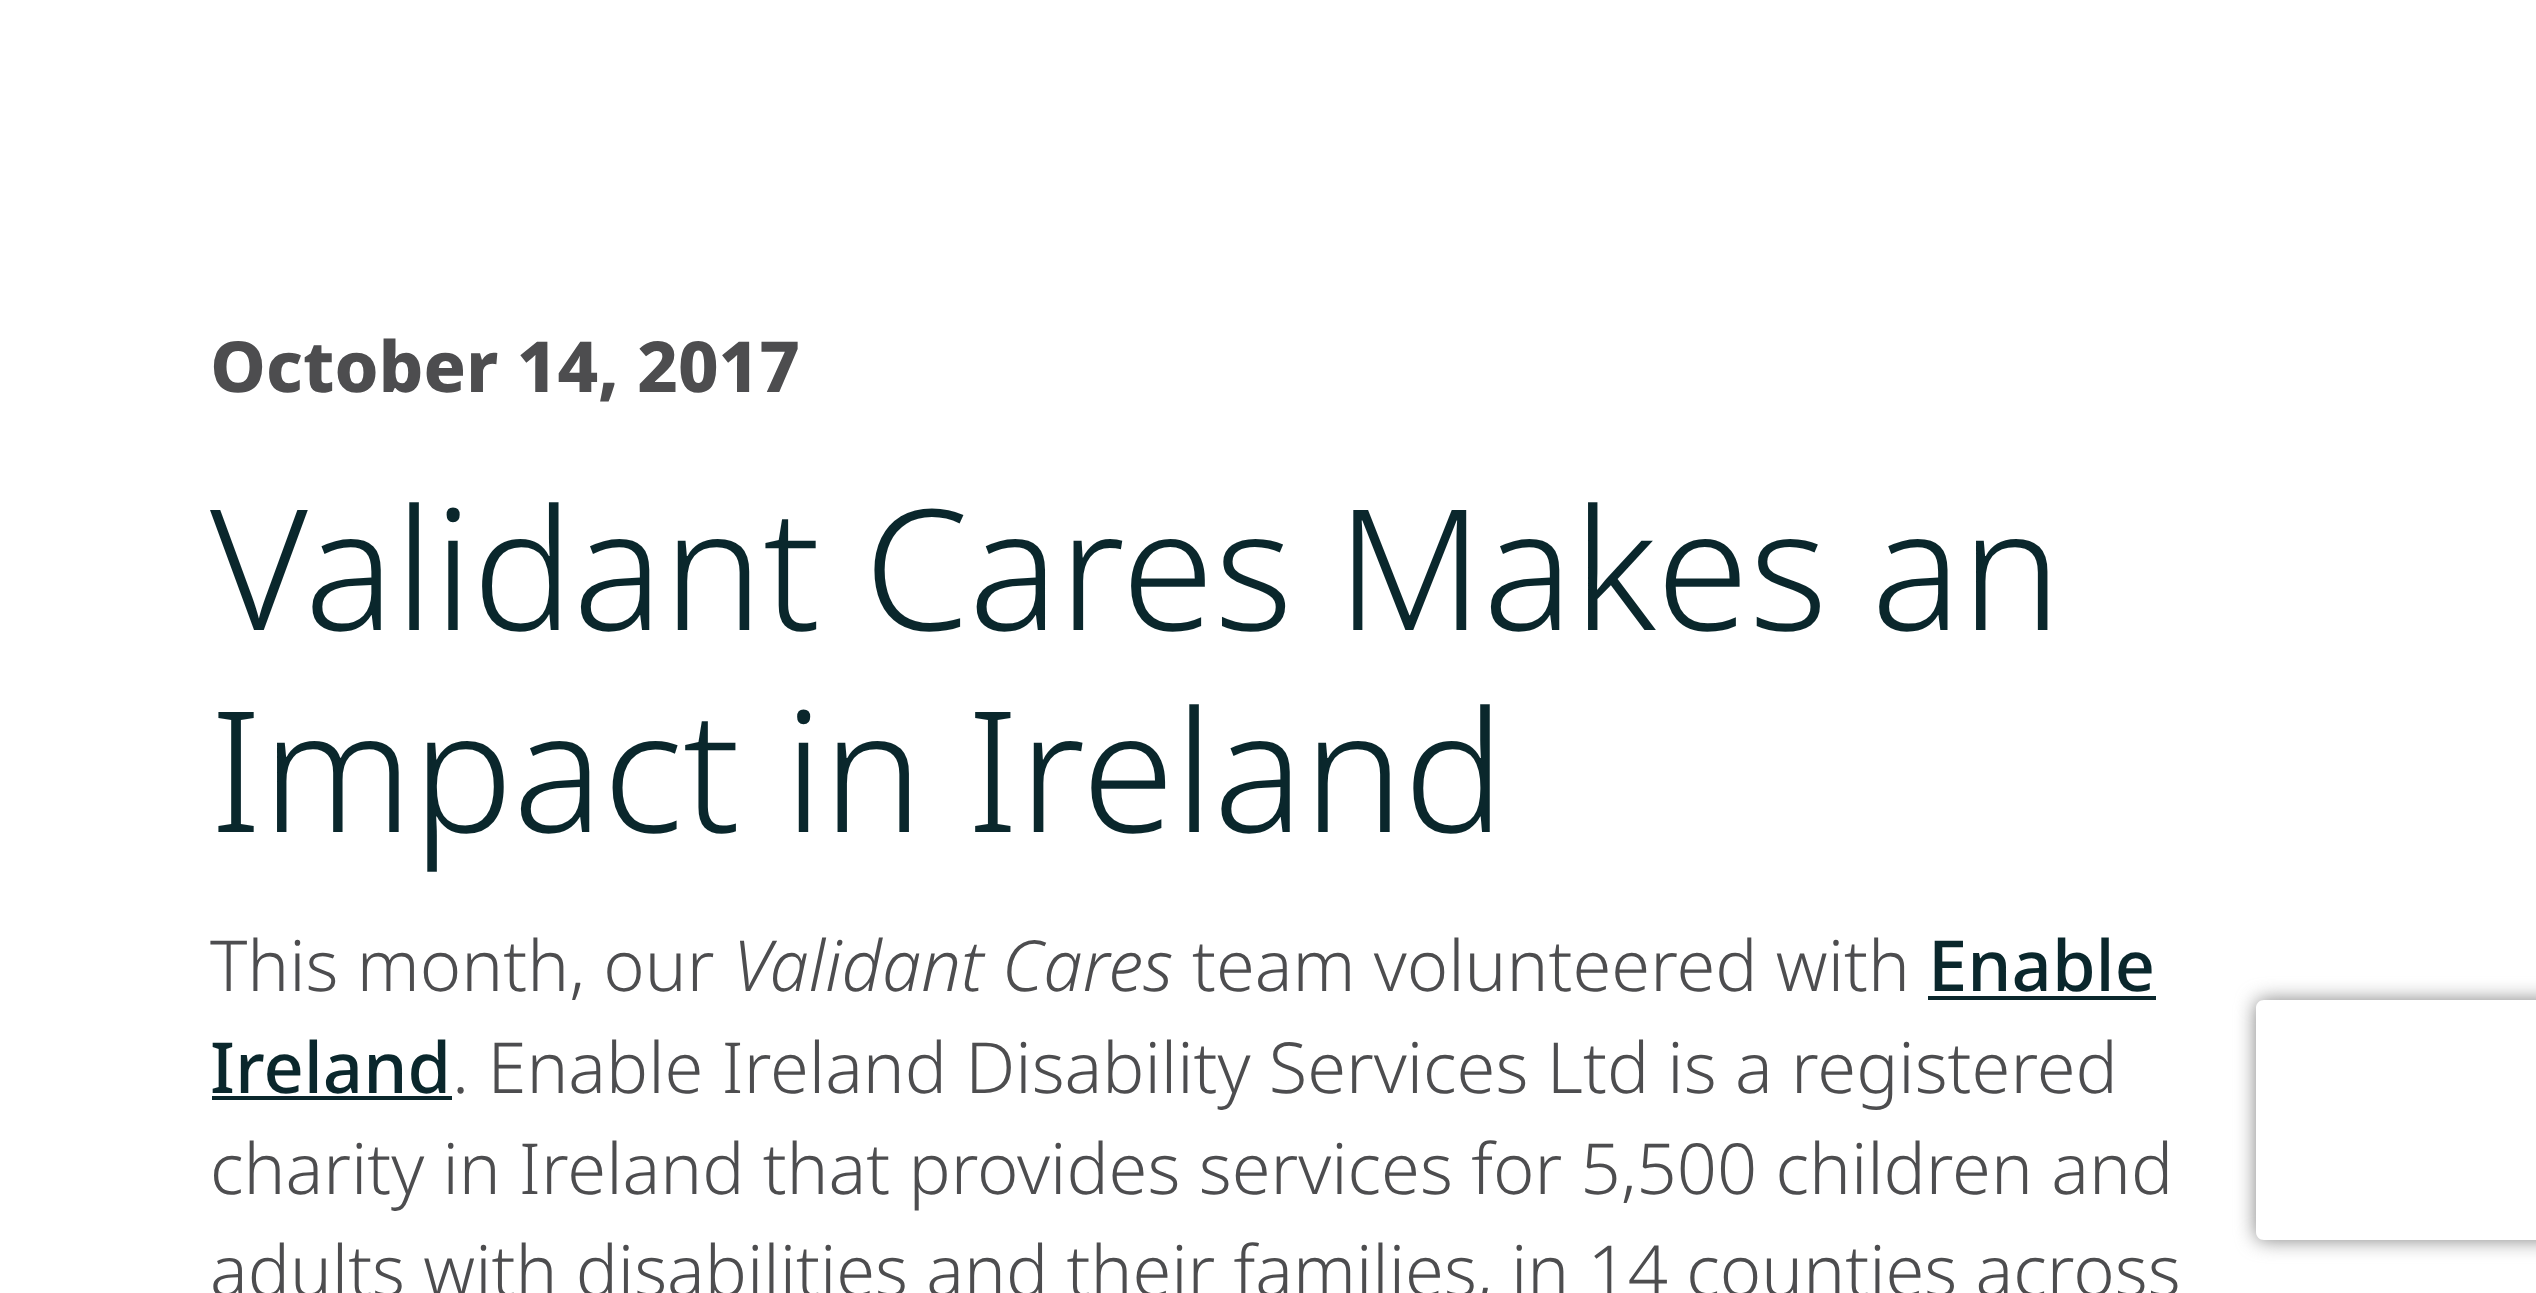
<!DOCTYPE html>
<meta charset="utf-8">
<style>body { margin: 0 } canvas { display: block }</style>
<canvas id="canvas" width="2536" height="1293"></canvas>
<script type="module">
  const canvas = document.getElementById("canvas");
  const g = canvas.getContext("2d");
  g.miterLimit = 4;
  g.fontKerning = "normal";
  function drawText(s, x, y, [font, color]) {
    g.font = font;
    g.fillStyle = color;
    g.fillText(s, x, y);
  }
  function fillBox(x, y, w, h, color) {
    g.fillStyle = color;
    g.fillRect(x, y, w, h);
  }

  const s1 = ["800 70.4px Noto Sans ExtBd", "#4D4D4F"];
  const s2 = ["300 168px Noto Sans", "#0A272C"];
  const s3 = ["300 70.4px Noto Sans", "#4D4D4F"];
  const s4 = ["italic 300 70.4px Noto Sans", "#4D4D4F"];
  const s5 = ["500 70.4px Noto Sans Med", "#0A272C"];

  fillBox(0, 0, 2536, 1293, "#FFFFFF");
  drawText("October 14, 2017", 210, 392, s1);
  drawText("Validant Cares Makes an", 210, 630, s2);
  drawText("Impact in Ireland", 210, 832, s2);
  drawText("This month, our", 210, 991, s3);
  drawText("Validant Cares", 733, 991, s4);
  drawText("team volunteered with", 1192, 991, s3);
  drawText("Enable", 1928, 991, s5);
  fillBox(1928, 996, 228, 4, "#0A272C");
  drawText("Ireland", 210, 1093, s5);
  fillBox(212, 1096, 240, 4, "#0A272C");
  drawText(". Enable Ireland Disability Services Ltd is a registered", 452, 1093, s3);
  drawText("charity in Ireland that provides services for 5,500 children and", 210, 1194, s3);
  drawText("adults with disabilities and their families, in 14 counties across", 210, 1296, s3);
  g.save();
  g.beginPath();
  g.moveTo(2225, 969);
  g.lineTo(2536, 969);
  g.lineTo(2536, 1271);
  g.lineTo(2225, 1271);
  g.closePath();
  g.moveTo(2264, 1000);
  g.lineTo(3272, 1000);
  g.bezierCurveTo(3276.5, 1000, 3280, 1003.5, 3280, 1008);
  g.lineTo(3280, 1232);
  g.bezierCurveTo(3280, 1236.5, 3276.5, 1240, 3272, 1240);
  g.lineTo(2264, 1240);
  g.bezierCurveTo(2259.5, 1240, 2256, 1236.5, 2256, 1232);
  g.lineTo(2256, 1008);
  g.bezierCurveTo(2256, 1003.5, 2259.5, 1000, 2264, 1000);
  g.closePath();
  g.clip("evenodd");
  g.fillStyle = "#808080";
  g.filter = "blur(10px)";
  g.beginPath();
  g.roundRect(2256, 1000, 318, 240, 8);
  g.fill();
  g.filter = "none";
  g.restore();
</script>
